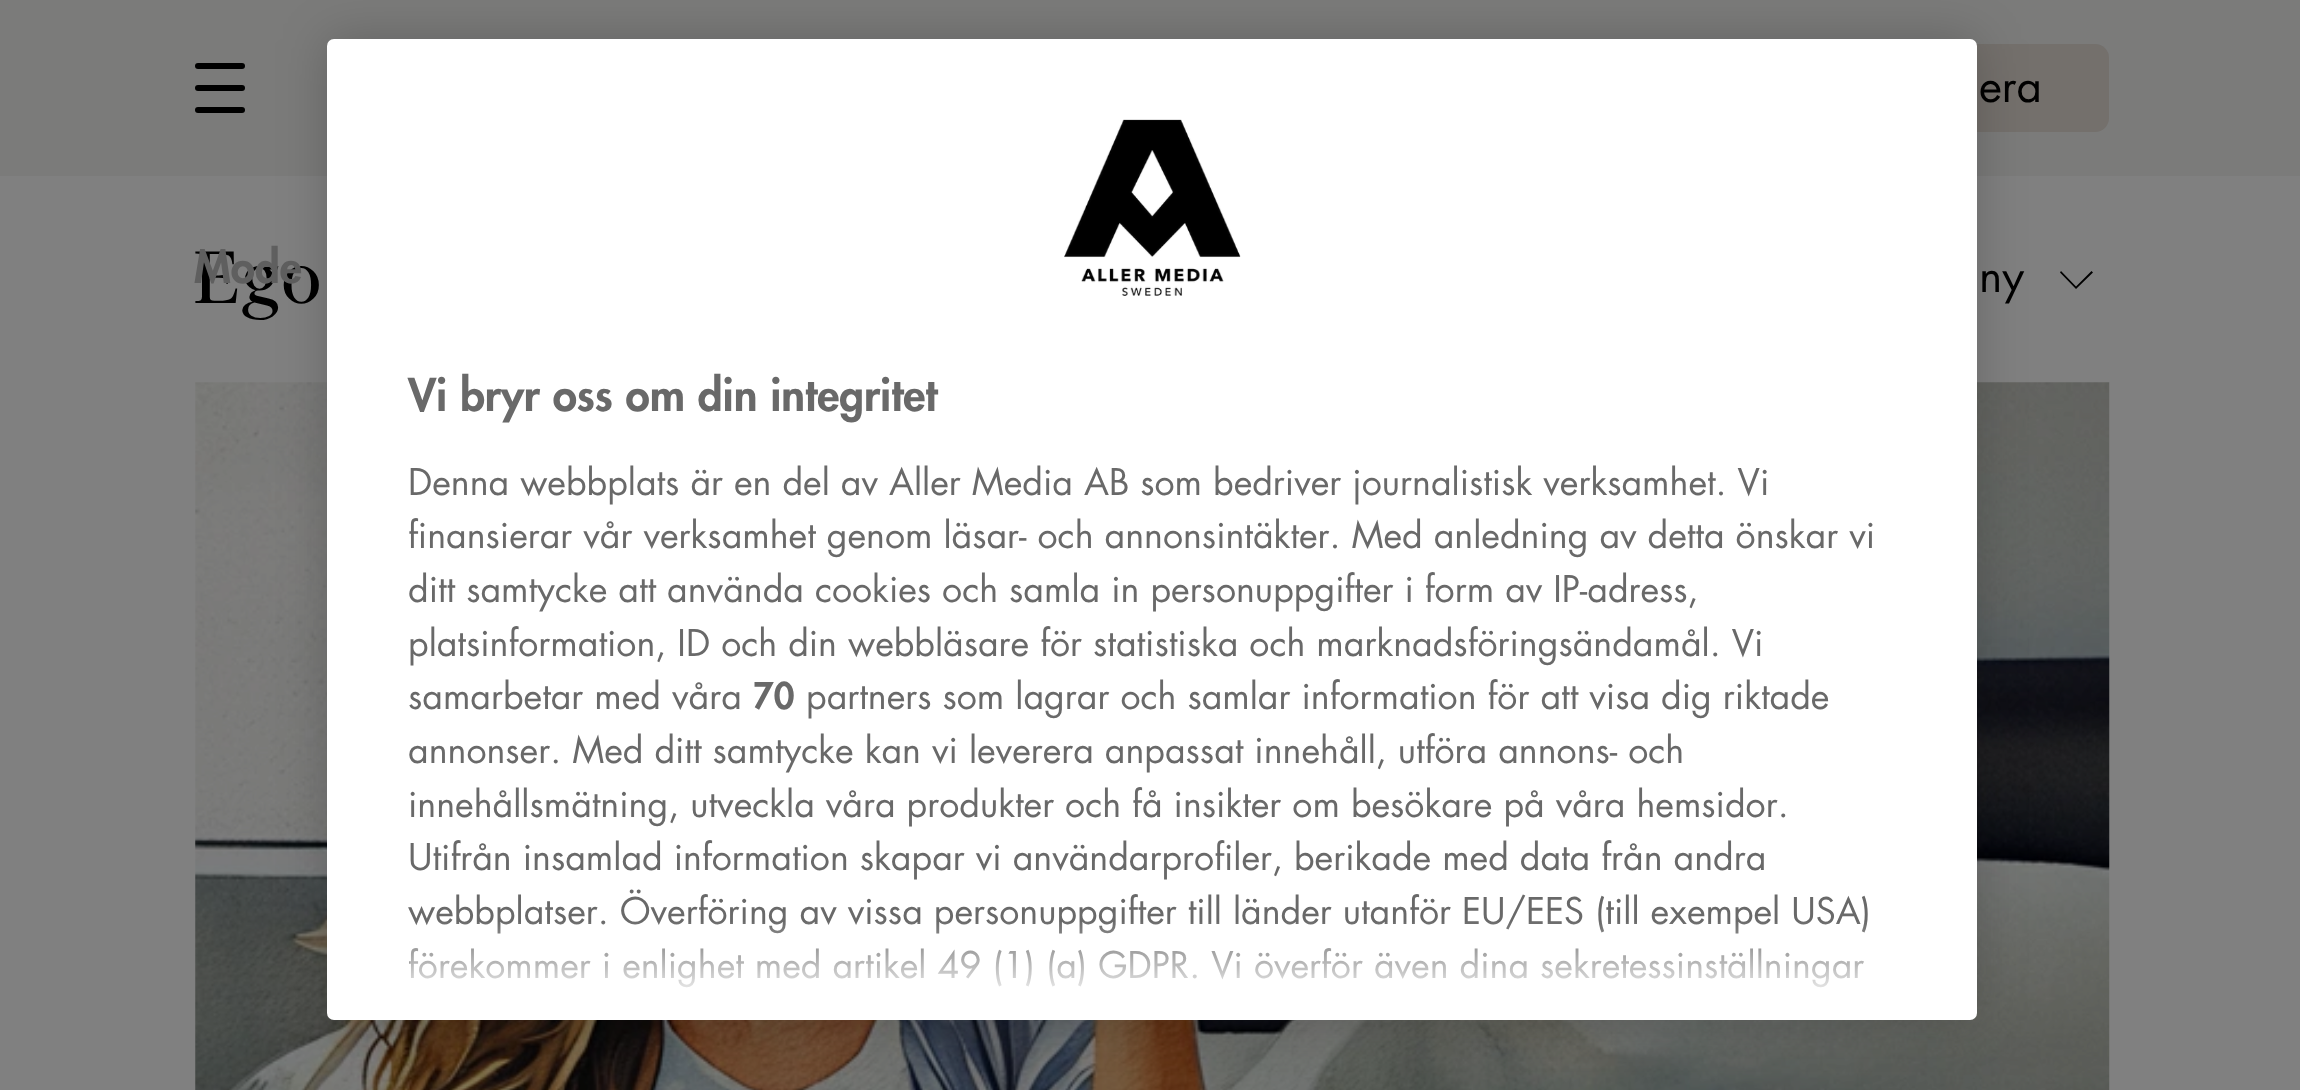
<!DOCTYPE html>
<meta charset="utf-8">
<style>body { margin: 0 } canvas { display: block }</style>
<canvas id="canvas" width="2300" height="1090"></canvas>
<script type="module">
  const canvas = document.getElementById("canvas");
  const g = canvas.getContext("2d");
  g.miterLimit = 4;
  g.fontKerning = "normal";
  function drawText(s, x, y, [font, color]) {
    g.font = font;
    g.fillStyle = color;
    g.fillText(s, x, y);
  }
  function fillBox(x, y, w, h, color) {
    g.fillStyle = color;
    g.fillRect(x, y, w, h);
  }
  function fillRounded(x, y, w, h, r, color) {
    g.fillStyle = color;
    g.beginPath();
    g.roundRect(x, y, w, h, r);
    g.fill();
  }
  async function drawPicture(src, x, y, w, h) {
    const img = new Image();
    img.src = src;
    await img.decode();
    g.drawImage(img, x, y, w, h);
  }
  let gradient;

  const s1 = ["44px Futura", "#000000"];
  const s2 = ["85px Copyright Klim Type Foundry", "#000000"];
  const s3 = ["900 44px Futura", "#5F5F5F"];
  const s4 = ["900 44px Futura", "#696969"];
  const s5 = ["35.75px Futura", "#696969"];
  const s6 = ["900 35.75px Futura", "#696969"];

  fillBox(0, 0, 2300, 1090, "#808080");
  fillBox(0, 0, 2300, 176, "#7B7B7A");
  fillRounded(195, 63, 50, 6, 3, "#000000");
  fillRounded(195, 85, 50, 6, 3, "#000000");
  fillRounded(195, 107, 50, 6, 3, "#000000");
  fillRounded(1735, 44, 374, 88, 14, "#74706C");
  drawText("era", 1979, 102, s1);
  g.letterSpacing = "4px";
  drawText("Ego", 194, 303, s2);
  g.letterSpacing = "0px";
  drawText("Mode", 194, 283, s3);
  drawText("ny", 1979, 292, s1);
  g.beginPath();
  g.moveTo(2091.5, 271);
  g.lineTo(2076, 286.5);
  g.lineTo(2061, 271);
  g.lineTo(2060, 272.5);
  g.lineTo(2076, 289);
  g.lineTo(2093, 272.5);
  g.closePath();
  g.fill();
  await drawPicture("pic1.png", 195, 382, 1915, 708);
  g.save();
  g.beginPath();
  g.moveTo(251, 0);
  g.lineTo(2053, 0);
  g.lineTo(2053, 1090);
  g.lineTo(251, 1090);
  g.closePath();
  g.moveTo(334, 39);
  g.lineTo(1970, 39);
  g.bezierCurveTo(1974, 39, 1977, 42, 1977, 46);
  g.lineTo(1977, 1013);
  g.bezierCurveTo(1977, 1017, 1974, 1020, 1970, 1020);
  g.lineTo(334, 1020);
  g.bezierCurveTo(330, 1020, 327, 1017, 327, 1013);
  g.lineTo(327, 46);
  g.bezierCurveTo(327, 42, 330, 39, 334, 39);
  g.closePath();
  g.clip("evenodd");
  g.fillStyle = "rgba(0, 0, 0, 0.2)";
  g.filter = "blur(25px)";
  g.beginPath();
  g.roundRect(327, 39, 1650, 981, 7);
  g.fill();
  g.filter = "none";
  g.restore();
  fillRounded(327, 39, 1650, 981, 7, "#FFFFFF");
  await drawPicture("pic2.png", 1064, 119, 177, 177);
  drawText("Vi bryr oss om din integritet", 408, 411, s4);
  drawText("Denna webbplats är en del av Aller Media AB som bedriver journalistisk verksamhet. Vi", 408, 495, s5);
  drawText("finansierar vår verksamhet genom läsar- och annonsintäkter. Med anledning av detta önskar vi", 408, 548, s5);
  drawText("ditt samtycke att använda cookies och samla in personuppgifter i form av IP-adress,", 408, 602, s5);
  drawText("platsinformation, ID och din webbläsare för statistiska och marknadsföringsändamål. Vi", 408, 656, s5);
  drawText("samarbetar med våra", 408, 709, s5);
  drawText("70", 753, 709, s6);
  drawText("partners som lagrar och samlar information för att visa dig riktade", 806, 709, s5);
  drawText("annonser. Med ditt samtycke kan vi leverera anpassat innehåll, utföra annons- och", 408, 763, s5);
  drawText("innehållsmätning, utveckla våra produkter och få insikter om besökare på våra hemsidor.", 408, 817, s5);
  drawText("Utifrån insamlad information skapar vi användarprofiler, berikade med data från andra", 408, 870, s5);
  drawText("webbplatser. Överföring av vissa personuppgifter till länder utanför EU/EES (till exempel USA)", 408, 924, s5);
  drawText("förekommer i enlighet med artikel 49 (1) (a) GDPR. Vi överför även dina sekretessinställningar", 408, 978, s5);
  gradient = g.createLinearGradient(1207, 920, 1207, 1003);
  gradient.addColorStop(0, "rgba(255, 255, 255, 0)");
  gradient.addColorStop(1, "#FFFFFF");
  g.fillStyle = gradient;
  g.fillRect(410, 922, 1457, 66);
</script>
